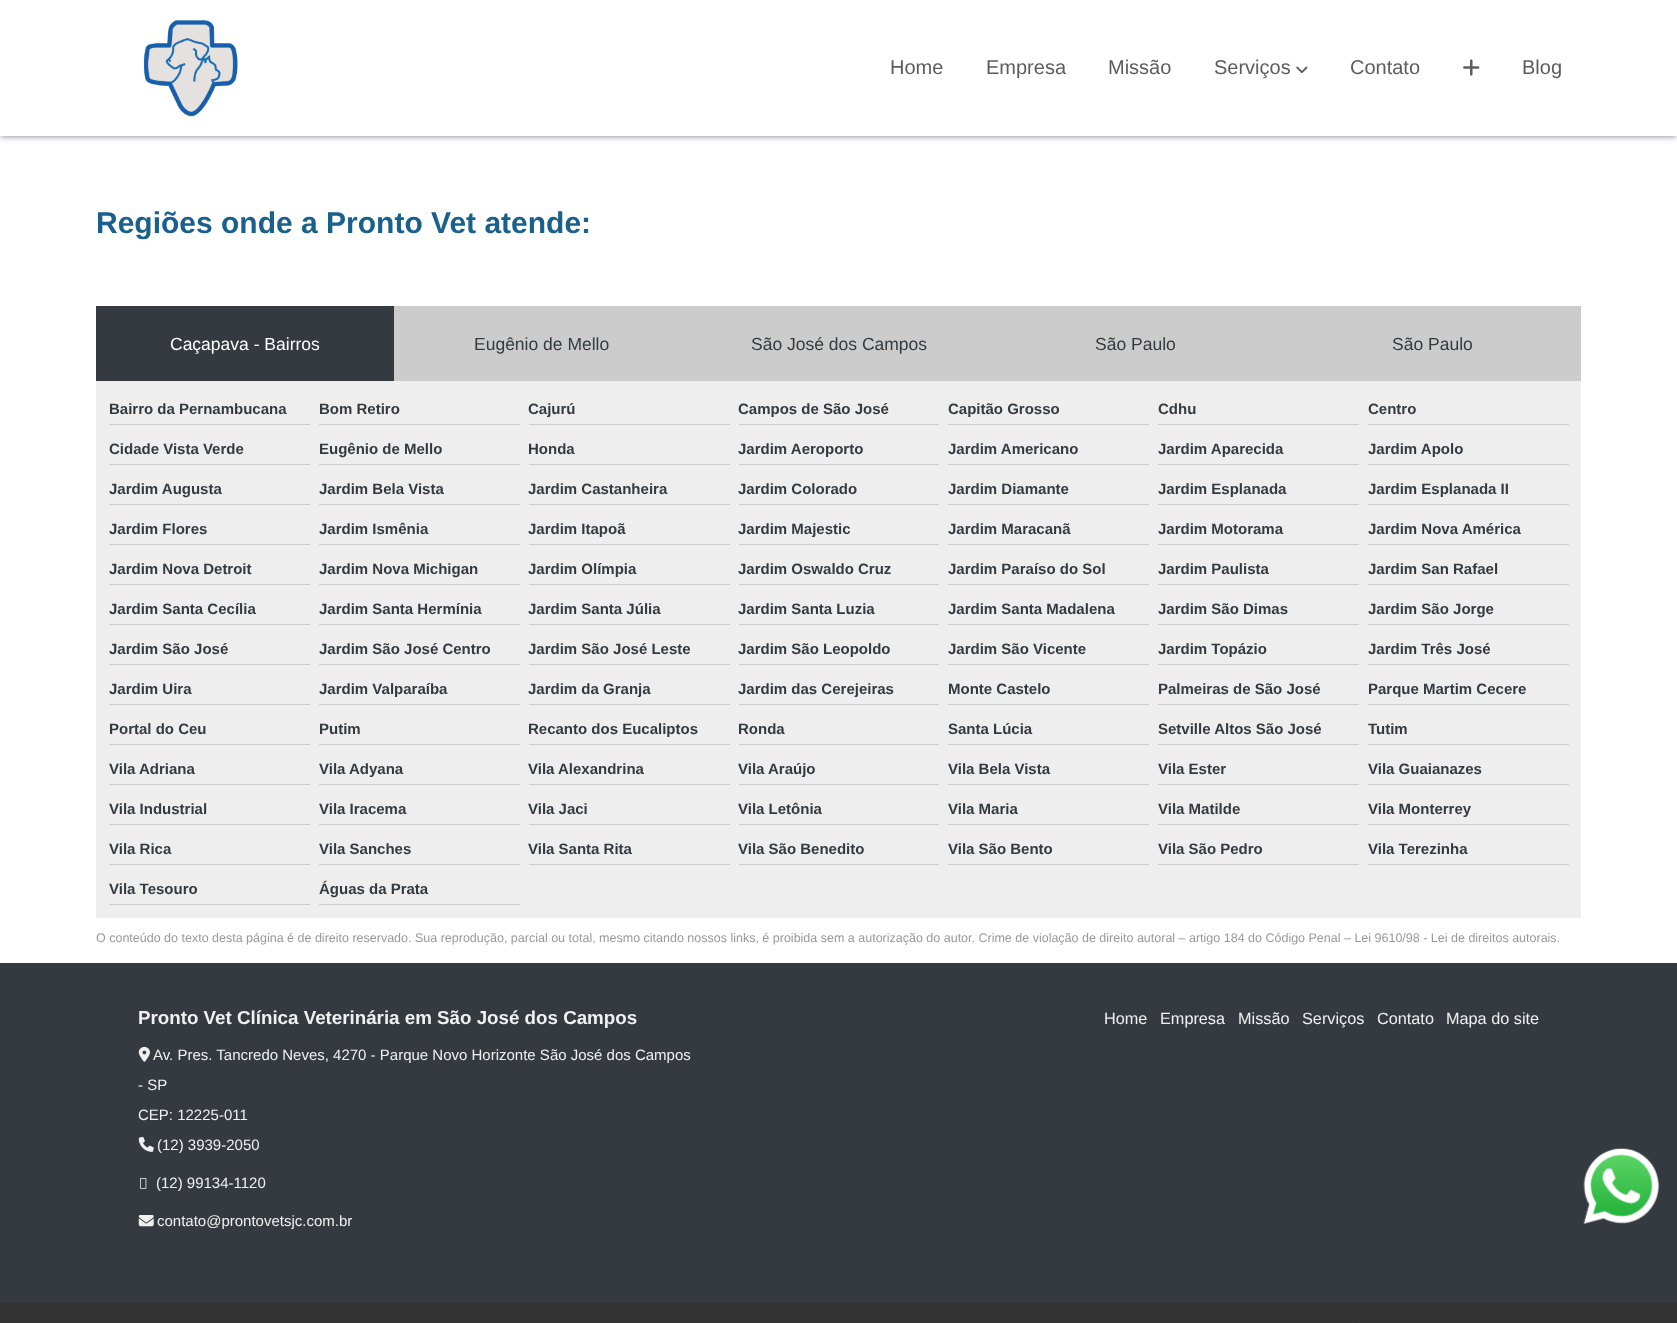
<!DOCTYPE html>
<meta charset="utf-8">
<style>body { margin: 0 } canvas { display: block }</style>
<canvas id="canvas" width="1677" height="1323"></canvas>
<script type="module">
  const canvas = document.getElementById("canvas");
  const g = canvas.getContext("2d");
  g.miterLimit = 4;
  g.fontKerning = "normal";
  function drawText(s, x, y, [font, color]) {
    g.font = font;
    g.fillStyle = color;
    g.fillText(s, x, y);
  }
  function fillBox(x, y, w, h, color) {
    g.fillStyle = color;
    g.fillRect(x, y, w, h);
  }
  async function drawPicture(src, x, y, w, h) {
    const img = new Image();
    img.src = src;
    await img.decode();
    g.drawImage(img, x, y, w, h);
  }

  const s1 = ["20px Liberation Sans", "#5C5C5C"];
  const s2 = ["bold 30px Liberation Sans", "#1A608D"];
  const s3 = ["17.5px Liberation Sans", "#FFFFFF"];
  const s4 = ["17.5px Liberation Sans", "#343A40"];
  const s5 = ["bold 15px Liberation Sans", "#343A40"];
  const s6 = ["12.5px Liberation Sans", "#999999"];
  const s7 = ["bold 18.75px Liberation Sans", "#F0F0F0"];
  const s8 = ["15px Liberation Sans", "#F0F0F0"];
  const s9 = ["16.25px Liberation Sans", "#F0F0F0"];

  fillBox(0, 0, 1677, 1323, "#FFFFFF");
  g.fillStyle = "rgba(0, 0, 0, 0.3)";
  g.filter = "blur(2px)";
  g.beginPath();
  g.rect(1, 3, 1675, 133);
  g.fill();
  g.filter = "none";
  g.fillStyle = "rgba(50, 50, 93, 0.25)";
  g.filter = "blur(3px)";
  g.beginPath();
  g.rect(1, 4, 1675, 134);
  g.fill();
  g.filter = "none";
  fillBox(0, 0, 1677, 136, "#FFFFFF");
  await drawPicture("pic1.png", 143, 20, 95, 97);
  drawText("Home", 890, 74, s1);
  drawText("Empresa", 986, 74, s1);
  drawText("Missão", 1108, 74, s1);
  drawText("Serviços", 1214, 74, s1);
  await drawPicture("pic2.png", 1296, 66, 12, 8);
  drawText("Contato", 1350, 74, s1);
  await drawPicture("pic3.png", 1463, 59, 17, 17);
  drawText("Blog", 1522, 74, s1);
  drawText("Regiões onde a Pronto Vet atende:", 96, 233, s2);
  fillBox(96, 306, 298, 75, "#343A40");
  drawText("Caçapava - Bairros", 170, 350, s3);
  fillBox(394, 306, 1187, 75, "#CCCCCC");
  drawText("Eugênio de Mello", 474, 350, s4);
  drawText("São José dos Campos", 751, 350, s4);
  drawText("São Paulo", 1095, 350, s4);
  drawText("São Paulo", 1392, 350, s4);
  fillBox(96, 381, 1485, 537, "#EEEEEE");
  fillBox(109, 424, 201, 1, "#CCCCCC");
  drawText("Bairro da Pernambucana", 109, 414, s5);
  fillBox(319, 424, 201, 1, "#CCCCCC");
  drawText("Bom Retiro", 319, 414, s5);
  fillBox(529, 424, 201, 1, "#CCCCCC");
  drawText("Cajurú", 528, 414, s5);
  fillBox(739, 424, 200, 1, "#CCCCCC");
  drawText("Campos de São José", 738, 414, s5);
  fillBox(948, 424, 201, 1, "#CCCCCC");
  drawText("Capitão Grosso", 948, 414, s5);
  fillBox(1158, 424, 201, 1, "#CCCCCC");
  drawText("Cdhu", 1158, 414, s5);
  fillBox(1368, 424, 201, 1, "#CCCCCC");
  drawText("Centro", 1368, 414, s5);
  fillBox(109, 464, 201, 1, "#CCCCCC");
  drawText("Cidade Vista Verde", 109, 454, s5);
  fillBox(319, 464, 201, 1, "#CCCCCC");
  drawText("Eugênio de Mello", 319, 454, s5);
  fillBox(529, 464, 201, 1, "#CCCCCC");
  drawText("Honda", 528, 454, s5);
  fillBox(739, 464, 200, 1, "#CCCCCC");
  drawText("Jardim Aeroporto", 738, 454, s5);
  fillBox(948, 464, 201, 1, "#CCCCCC");
  drawText("Jardim Americano", 948, 454, s5);
  fillBox(1158, 464, 201, 1, "#CCCCCC");
  drawText("Jardim Aparecida", 1158, 454, s5);
  fillBox(1368, 464, 201, 1, "#CCCCCC");
  drawText("Jardim Apolo", 1368, 454, s5);
  fillBox(109, 504, 201, 1, "#CCCCCC");
  drawText("Jardim Augusta", 109, 494, s5);
  fillBox(319, 504, 201, 1, "#CCCCCC");
  drawText("Jardim Bela Vista", 319, 494, s5);
  fillBox(529, 504, 201, 1, "#CCCCCC");
  drawText("Jardim Castanheira", 528, 494, s5);
  fillBox(739, 504, 200, 1, "#CCCCCC");
  drawText("Jardim Colorado", 738, 494, s5);
  fillBox(948, 504, 201, 1, "#CCCCCC");
  drawText("Jardim Diamante", 948, 494, s5);
  fillBox(1158, 504, 201, 1, "#CCCCCC");
  drawText("Jardim Esplanada", 1158, 494, s5);
  fillBox(1368, 504, 201, 1, "#CCCCCC");
  drawText("Jardim Esplanada II", 1368, 494, s5);
  fillBox(109, 544, 201, 1, "#CCCCCC");
  drawText("Jardim Flores", 109, 534, s5);
  fillBox(319, 544, 201, 1, "#CCCCCC");
  drawText("Jardim Ismênia", 319, 534, s5);
  fillBox(529, 544, 201, 1, "#CCCCCC");
  drawText("Jardim Itapoã", 528, 534, s5);
  fillBox(739, 544, 200, 1, "#CCCCCC");
  drawText("Jardim Majestic", 738, 534, s5);
  fillBox(948, 544, 201, 1, "#CCCCCC");
  drawText("Jardim Maracanã", 948, 534, s5);
  fillBox(1158, 544, 201, 1, "#CCCCCC");
  drawText("Jardim Motorama", 1158, 534, s5);
  fillBox(1368, 544, 201, 1, "#CCCCCC");
  drawText("Jardim Nova América", 1368, 534, s5);
  fillBox(109, 584, 201, 1, "#CCCCCC");
  drawText("Jardim Nova Detroit", 109, 574, s5);
  fillBox(319, 584, 201, 1, "#CCCCCC");
  drawText("Jardim Nova Michigan", 319, 574, s5);
  fillBox(529, 584, 201, 1, "#CCCCCC");
  drawText("Jardim Olímpia", 528, 574, s5);
  fillBox(739, 584, 200, 1, "#CCCCCC");
  drawText("Jardim Oswaldo Cruz", 738, 574, s5);
  fillBox(948, 584, 201, 1, "#CCCCCC");
  drawText("Jardim Paraíso do Sol", 948, 574, s5);
  fillBox(1158, 584, 201, 1, "#CCCCCC");
  drawText("Jardim Paulista", 1158, 574, s5);
  fillBox(1368, 584, 201, 1, "#CCCCCC");
  drawText("Jardim San Rafael", 1368, 574, s5);
  fillBox(109, 624, 201, 1, "#CCCCCC");
  drawText("Jardim Santa Cecília", 109, 614, s5);
  fillBox(319, 624, 201, 1, "#CCCCCC");
  drawText("Jardim Santa Hermínia", 319, 614, s5);
  fillBox(529, 624, 201, 1, "#CCCCCC");
  drawText("Jardim Santa Júlia", 528, 614, s5);
  fillBox(739, 624, 200, 1, "#CCCCCC");
  drawText("Jardim Santa Luzia", 738, 614, s5);
  fillBox(948, 624, 201, 1, "#CCCCCC");
  drawText("Jardim Santa Madalena", 948, 614, s5);
  fillBox(1158, 624, 201, 1, "#CCCCCC");
  drawText("Jardim São Dimas", 1158, 614, s5);
  fillBox(1368, 624, 201, 1, "#CCCCCC");
  drawText("Jardim São Jorge", 1368, 614, s5);
  fillBox(109, 664, 201, 1, "#CCCCCC");
  drawText("Jardim São José", 109, 654, s5);
  fillBox(319, 664, 201, 1, "#CCCCCC");
  drawText("Jardim São José Centro", 319, 654, s5);
  fillBox(529, 664, 201, 1, "#CCCCCC");
  drawText("Jardim São José Leste", 528, 654, s5);
  fillBox(739, 664, 200, 1, "#CCCCCC");
  drawText("Jardim São Leopoldo", 738, 654, s5);
  fillBox(948, 664, 201, 1, "#CCCCCC");
  drawText("Jardim São Vicente", 948, 654, s5);
  fillBox(1158, 664, 201, 1, "#CCCCCC");
  drawText("Jardim Topázio", 1158, 654, s5);
  fillBox(1368, 664, 201, 1, "#CCCCCC");
  drawText("Jardim Três José", 1368, 654, s5);
  fillBox(109, 704, 201, 1, "#CCCCCC");
  drawText("Jardim Uira", 109, 694, s5);
  fillBox(319, 704, 201, 1, "#CCCCCC");
  drawText("Jardim Valparaíba", 319, 694, s5);
  fillBox(529, 704, 201, 1, "#CCCCCC");
  drawText("Jardim da Granja", 528, 694, s5);
  fillBox(739, 704, 200, 1, "#CCCCCC");
  drawText("Jardim das Cerejeiras", 738, 694, s5);
  fillBox(948, 704, 201, 1, "#CCCCCC");
  drawText("Monte Castelo", 948, 694, s5);
  fillBox(1158, 704, 201, 1, "#CCCCCC");
  drawText("Palmeiras de São José", 1158, 694, s5);
  fillBox(1368, 704, 201, 1, "#CCCCCC");
  drawText("Parque Martim Cecere", 1368, 694, s5);
  fillBox(109, 744, 201, 1, "#CCCCCC");
  drawText("Portal do Ceu", 109, 734, s5);
  fillBox(319, 744, 201, 1, "#CCCCCC");
  drawText("Putim", 319, 734, s5);
  fillBox(529, 744, 201, 1, "#CCCCCC");
  drawText("Recanto dos Eucaliptos", 528, 734, s5);
  fillBox(739, 744, 200, 1, "#CCCCCC");
  drawText("Ronda", 738, 734, s5);
  fillBox(948, 744, 201, 1, "#CCCCCC");
  drawText("Santa Lúcia", 948, 734, s5);
  fillBox(1158, 744, 201, 1, "#CCCCCC");
  drawText("Setville Altos São José", 1158, 734, s5);
  fillBox(1368, 744, 201, 1, "#CCCCCC");
  drawText("Tutim", 1368, 734, s5);
  fillBox(109, 784, 201, 1, "#CCCCCC");
  drawText("Vila Adriana", 109, 774, s5);
  fillBox(319, 784, 201, 1, "#CCCCCC");
  drawText("Vila Adyana", 319, 774, s5);
  fillBox(529, 784, 201, 1, "#CCCCCC");
  drawText("Vila Alexandrina", 528, 774, s5);
  fillBox(739, 784, 200, 1, "#CCCCCC");
  drawText("Vila Araújo", 738, 774, s5);
  fillBox(948, 784, 201, 1, "#CCCCCC");
  drawText("Vila Bela Vista", 948, 774, s5);
  fillBox(1158, 784, 201, 1, "#CCCCCC");
  drawText("Vila Ester", 1158, 774, s5);
  fillBox(1368, 784, 201, 1, "#CCCCCC");
  drawText("Vila Guaianazes", 1368, 774, s5);
  fillBox(109, 824, 201, 1, "#CCCCCC");
  drawText("Vila Industrial", 109, 814, s5);
  fillBox(319, 824, 201, 1, "#CCCCCC");
  drawText("Vila Iracema", 319, 814, s5);
  fillBox(529, 824, 201, 1, "#CCCCCC");
  drawText("Vila Jaci", 528, 814, s5);
  fillBox(739, 824, 200, 1, "#CCCCCC");
  drawText("Vila Letônia", 738, 814, s5);
  fillBox(948, 824, 201, 1, "#CCCCCC");
  drawText("Vila Maria", 948, 814, s5);
  fillBox(1158, 824, 201, 1, "#CCCCCC");
  drawText("Vila Matilde", 1158, 814, s5);
  fillBox(1368, 824, 201, 1, "#CCCCCC");
  drawText("Vila Monterrey", 1368, 814, s5);
  fillBox(109, 864, 201, 1, "#CCCCCC");
  drawText("Vila Rica", 109, 854, s5);
  fillBox(319, 864, 201, 1, "#CCCCCC");
  drawText("Vila Sanches", 319, 854, s5);
  fillBox(529, 864, 201, 1, "#CCCCCC");
  drawText("Vila Santa Rita", 528, 854, s5);
  fillBox(739, 864, 200, 1, "#CCCCCC");
  drawText("Vila São Benedito", 738, 854, s5);
  fillBox(948, 864, 201, 1, "#CCCCCC");
  drawText("Vila São Bento", 948, 854, s5);
  fillBox(1158, 864, 201, 1, "#CCCCCC");
  drawText("Vila São Pedro", 1158, 854, s5);
  fillBox(1368, 864, 201, 1, "#CCCCCC");
  drawText("Vila Terezinha", 1368, 854, s5);
  fillBox(109, 904, 201, 1, "#CCCCCC");
  drawText("Vila Tesouro", 109, 894, s5);
  fillBox(319, 904, 201, 1, "#CCCCCC");
  drawText("Águas da Prata", 319, 894, s5);
  drawText("O conteúdo do texto desta página é de direito reservado. Sua reprodução, parcial ou total, mesmo citando nossos links, é proibida sem a autorização do autor. Crime de violação de direito autoral – artigo 184 do Código Penal – Lei 9610/98 - Lei de direitos autorais.", 96, 942, s6);
  fillBox(0, 963, 1677, 340, "#343A40");
  drawText("Pronto Vet Clínica Veterinária em São José dos Campos", 138, 1024, s7);
  await drawPicture("pic4.png", 138, 1046, 12, 16);
  drawText("Av. Pres. Tancredo Neves, 4270 - Parque Novo Horizonte São José dos Campos", 153, 1060, s8);
  drawText("- SP", 138, 1090, s8);
  drawText("CEP: 12225-011", 138, 1120, s8);
  await drawPicture("pic5.png", 138, 1136, 16, 16);
  drawText("(12) 3939-2050", 157, 1150, s8);
  await drawPicture("pic6.png", 140, 1178, 7, 11);
  drawText("(12) 99134-1120", 156, 1188, s8);
  await drawPicture("pic7.png", 138, 1215, 16, 12);
  drawText("contato@prontovetsjc.com.br", 157, 1226, s8);
  drawText("Home", 1104, 1024, s9);
  drawText("Empresa", 1160, 1024, s9);
  drawText("Missão", 1238, 1024, s9);
  drawText("Serviços", 1302, 1024, s9);
  drawText("Contato", 1377, 1024, s9);
  drawText("Mapa do site", 1446, 1024, s9);
  await drawPicture("pic8.png", 1583, 1148, 76, 76);
  fillBox(0, 1303, 1677, 20, "#333333");
  await drawPicture("pic9.png", 1352, 1322, 2, 1);
</script>
